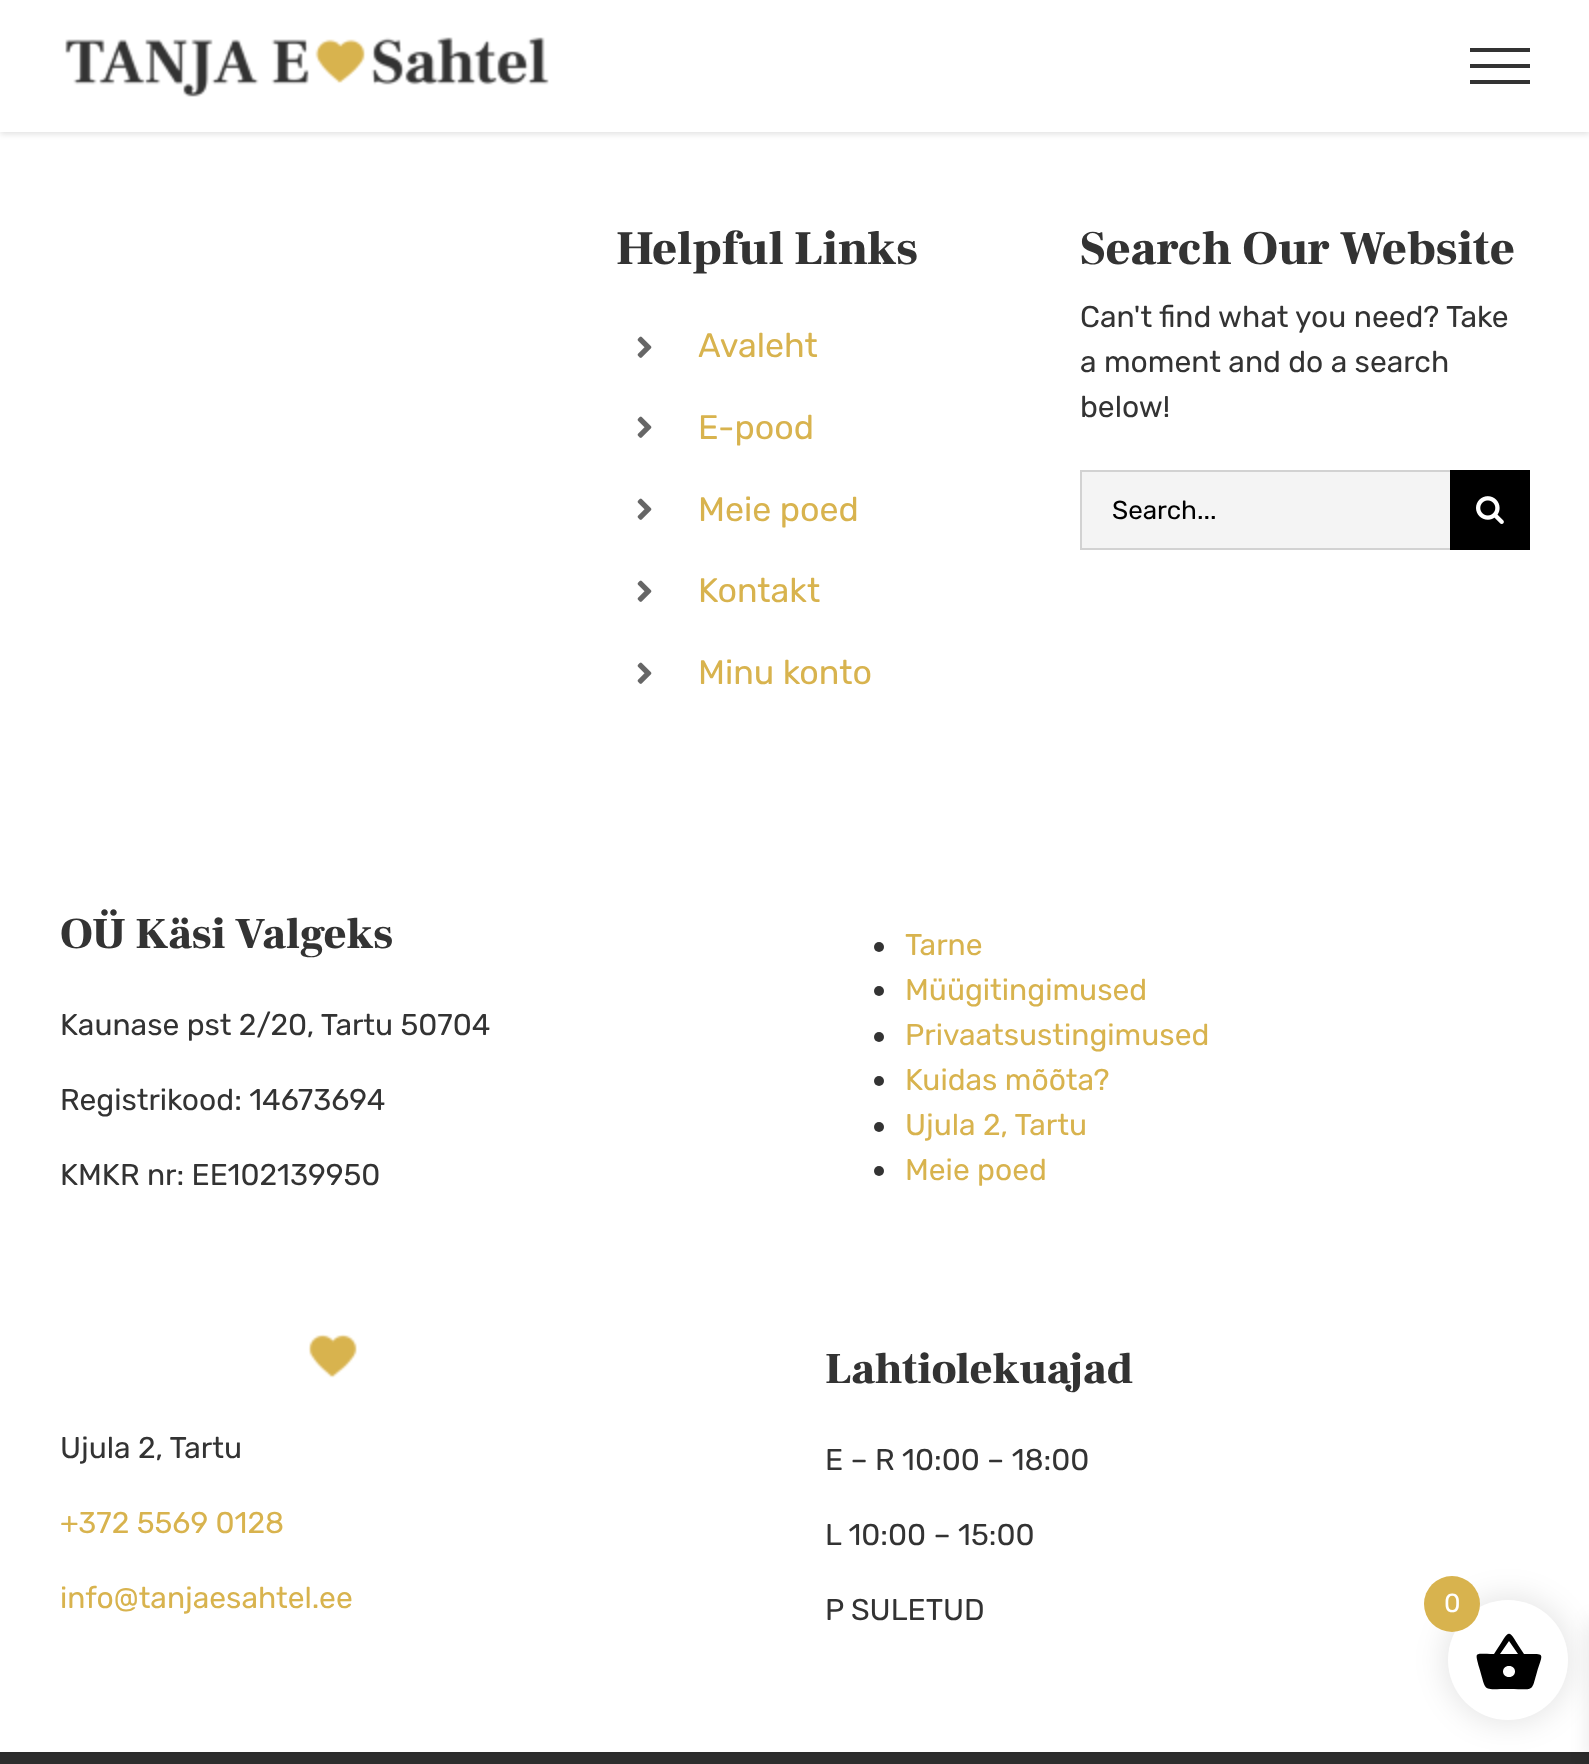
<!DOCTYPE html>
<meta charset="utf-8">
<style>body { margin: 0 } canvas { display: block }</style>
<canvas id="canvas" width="1589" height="1764"></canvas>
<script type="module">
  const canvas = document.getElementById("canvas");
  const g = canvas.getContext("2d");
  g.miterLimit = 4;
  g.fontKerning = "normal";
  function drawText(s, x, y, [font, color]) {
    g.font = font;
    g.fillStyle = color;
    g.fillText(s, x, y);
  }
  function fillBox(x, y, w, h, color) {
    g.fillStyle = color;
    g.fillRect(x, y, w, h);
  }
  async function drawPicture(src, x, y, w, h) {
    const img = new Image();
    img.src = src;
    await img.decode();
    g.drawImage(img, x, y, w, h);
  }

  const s1 = ["900 48px Frank Ruhl Libre", "#333333"];
  const s2 = ["34px Rubik", "#D8B34E"];
  const s3 = ["30px Rubik", "#333333"];
  const s4 = ["26px Rubik", "#000000"];
  const s5 = ["900 44px Frank Ruhl Libre", "#333333"];
  const s6 = ["30px Rubik", "#D8B34E"];
  const s7 = ["26px Rubik", "#FFFFFF"];

  fillBox(0, 0, 1589, 1764, "#FFFFFF");
  g.fillStyle = "rgba(0, 0, 0, 0.12)";
  g.filter = "blur(3px)";
  g.beginPath();
  g.rect(0, 2, 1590, 132);
  g.fill();
  g.filter = "none";
  fillBox(0, 0, 1589, 132, "#FFFFFF");
  await drawPicture("pic1.png", 65, 37, 484, 60);
  fillBox(1470, 48, 60, 4, "#333333");
  fillBox(1470, 64, 60, 4, "#333333");
  fillBox(1470, 80, 60, 4, "#333333");
  drawText("Helpful Links", 616, 264, s1);
  await drawPicture("pic2.png", 637, 336, 15, 22);
  drawText("Avaleht", 698, 357, s2);
  await drawPicture("pic2.png", 637, 416, 15, 22);
  drawText("E-pood", 698, 439, s2);
  await drawPicture("pic2.png", 637, 498, 15, 22);
  drawText("Meie poed", 698, 521, s2);
  await drawPicture("pic2.png", 637, 580, 15, 22);
  drawText("Kontakt", 698, 602, s2);
  await drawPicture("pic2.png", 637, 662, 15, 22);
  drawText("Minu konto", 698, 684, s2);
  drawText("Search Our Website", 1080, 264, s1);
  drawText("Can't find what you need? Take", 1080, 327, s3);
  drawText("a moment and do a search", 1080, 372, s3);
  drawText("below!", 1080, 417, s3);
  fillBox(1082, 472, 368, 76, "#F4F4F4");
  fillBox(1080, 470, 370, 2, "#D2D2D2");
  fillBox(1080, 548, 370, 2, "#D2D2D2");
  fillBox(1080, 470, 2, 80, "#D2D2D2");
  drawText("Search...", 1112, 519, s4);
  fillBox(1450, 470, 80, 80, "#000000");
  await drawPicture("pic3.png", 1476, 496, 28, 28);
  drawText("OÜ Käsi Valgeks", 60, 948, s5);
  drawText("Kaunase pst 2/20, Tartu 50704", 60, 1035, s3);
  drawText("Registrikood: 14673694", 60, 1110, s3);
  drawText("KMKR nr: EE102139950", 60, 1185, s3);
  g.beginPath();
  g.arc(879, 947, 5, 0, Math.PI * 2);
  g.fill();
  drawText("Tarne", 905, 955, s6);
  g.fillStyle = "#333333";
  g.beginPath();
  g.arc(879, 991, 5, 0, Math.PI * 2);
  g.fill();
  drawText("Müügitingimused", 905, 1000, s6);
  g.fillStyle = "#333333";
  g.beginPath();
  g.arc(879, 1037, 5, 0, Math.PI * 2);
  g.fill();
  drawText("Privaatsustingimused", 905, 1045, s6);
  g.fillStyle = "#333333";
  g.beginPath();
  g.arc(879, 1081, 5, 0, Math.PI * 2);
  g.fill();
  drawText("Kuidas mõõta?", 905, 1090, s6);
  g.fillStyle = "#333333";
  g.beginPath();
  g.arc(879, 1127, 5, 0, Math.PI * 2);
  g.fill();
  drawText("Ujula 2, Tartu", 905, 1135, s6);
  g.fillStyle = "#333333";
  g.beginPath();
  g.arc(879, 1171, 5, 0, Math.PI * 2);
  g.fill();
  drawText("Meie poed", 905, 1180, s6);
  await drawPicture("pic4.png", 308, 1334, 49, 44);
  drawText("Ujula 2, Tartu", 60, 1458, s3);
  drawText("+372 5569 0128", 60, 1533, s6);
  drawText("info@tanjaesahtel.ee", 60, 1608, s6);
  drawText("Lahtiolekuajad", 825, 1383, s5);
  drawText("E – R 10:00 – 18:00", 825, 1470, s3);
  drawText("L 10:00 – 15:00", 825, 1545, s3);
  drawText("P SULETUD", 825, 1620, s3);
  fillBox(0, 1754, 1589, 10, "#2D2D2D");
  fillBox(0, 1752, 1589, 2, "#2B2B2B");
  g.fillStyle = "rgba(0, 0, 0, 0.1)";
  g.filter = "blur(15px)";
  g.beginPath();
  g.roundRect(1444, 1596, 128, 128, 64);
  g.fill();
  g.filter = "none";
  g.filter = "blur(10px)";
  g.beginPath();
  g.rect(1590, 1620, 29, 142);
  g.fill();
  g.filter = "none";
  g.fillStyle = "#FFFFFF";
  g.beginPath();
  g.arc(1508, 1660, 60, 0, Math.PI * 2);
  g.fill();
  g.fillStyle = "#D8B34E";
  g.beginPath();
  g.arc(1452, 1604, 28, 0, Math.PI * 2);
  g.fill();
  drawText("0", 1444, 1612, s7);
  g.fillStyle = "#000000";
  g.beginPath();
  g.moveTo(1509, 1677);
  g.bezierCurveTo(1517, 1677, 1517, 1666, 1509, 1666);
  g.bezierCurveTo(1501, 1666, 1501, 1677, 1509, 1677);
  g.closePath();
  g.moveTo(1500, 1654);
  g.lineTo(1518, 1654);
  g.lineTo(1509, 1641);
  g.closePath();
  g.moveTo(1524, 1654);
  g.bezierCurveTo(1546, 1654, 1543, 1652, 1537, 1672);
  g.bezierCurveTo(1531, 1693, 1535, 1689, 1509, 1689);
  g.bezierCurveTo(1481, 1689, 1487, 1693, 1479, 1667);
  g.bezierCurveTo(1475, 1651, 1474, 1654, 1494, 1654);
  g.bezierCurveTo(1512, 1627, 1506, 1627, 1524, 1654);
  g.closePath();
  g.fill();
</script>
